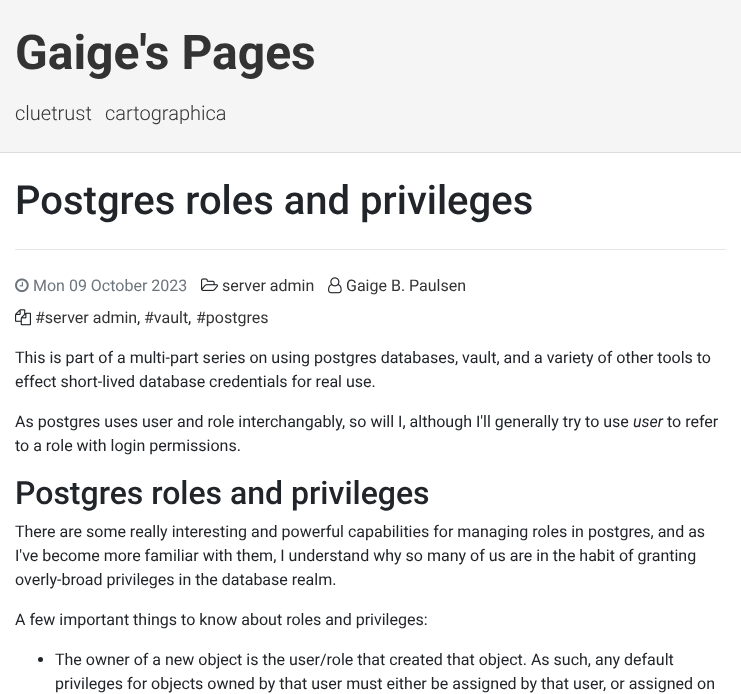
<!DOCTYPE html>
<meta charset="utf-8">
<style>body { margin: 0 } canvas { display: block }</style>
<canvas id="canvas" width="741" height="694"></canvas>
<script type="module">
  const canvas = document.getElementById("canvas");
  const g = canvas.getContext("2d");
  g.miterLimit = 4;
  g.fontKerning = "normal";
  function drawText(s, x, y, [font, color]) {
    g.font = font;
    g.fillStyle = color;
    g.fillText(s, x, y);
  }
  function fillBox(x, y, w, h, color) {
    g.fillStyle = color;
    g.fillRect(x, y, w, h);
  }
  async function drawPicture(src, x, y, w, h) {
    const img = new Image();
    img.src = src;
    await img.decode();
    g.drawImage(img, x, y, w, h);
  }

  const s1 = ["bold 48px Roboto", "#333333"];
  const s2 = ["300 20px Roboto", "#333333"];
  const s3 = ["500 40px Roboto", "#212529"];
  const s4 = ["16px Roboto", "#6C757D"];
  const s5 = ["16px Roboto", "#333333"];
  const s6 = ["16px Roboto", "#212529"];
  const s7 = ["italic 16px Roboto", "#212529"];
  const s8 = ["500 32px Roboto", "#212529"];

  fillBox(0, 0, 741, 694, "#F5F5F5");
  fillBox(0, 152, 741, 1, "#DDDDDD");
  drawText("Gaige's Pages", 15, 69, s1);
  drawText("cluetrust", 15, 120, s2);
  drawText("cartographica", 105, 120, s2);
  fillBox(0, 153, 741, 541, "#FFFFFF");
  drawText("Postgres roles and privileges", 15, 214, s3);
  fillBox(15, 249, 711, 1, "#E6E6E6");
  await drawPicture("pic1.png", 15, 278, 14, 15);
  drawText("Mon 09 October 2023", 33, 291, s4);
  await drawPicture("pic2.png", 201, 278, 17, 13);
  drawText("server admin", 222, 291, s5);
  await drawPicture("pic3.png", 328, 277, 14, 17);
  drawText("Gaige B. Paulsen", 346, 291, s5);
  await drawPicture("pic4.png", 15, 309, 16, 17);
  drawText("#server admin", 35, 323, s5);
  drawText(",", 137, 323, s6);
  drawText("#vault", 144, 323, s5);
  drawText(",", 188, 323, s6);
  drawText("#postgres", 196, 323, s5);
  drawText("This is part of a multi-part series on using postgres databases, vault, and a variety of other tools to", 15, 363, s6);
  drawText("effect short-lived database credentials for real use.", 15, 387, s6);
  drawText("As postgres uses user and role interchangably, so will I, although I'll generally try to use", 15, 427, s6);
  drawText("user", 633, 427, s7);
  drawText("to refer", 667, 427, s6);
  drawText("to a role with login permissions.", 15, 451, s6);
  drawText("Postgres roles and privileges", 15, 504, s8);
  drawText("There are some really interesting and powerful capabilities for managing roles in postgres, and as", 15, 537, s6);
  drawText("I've become more familiar with them, I understand why so many of us are in the habit of granting", 15, 561, s6);
  drawText("overly-broad privileges in the database realm.", 15, 585, s6);
  drawText("A few important things to know about roles and privileges:", 15, 625, s6);
  g.beginPath();
  g.arc(40.5, 659.5, 2.5, 0, Math.PI * 2);
  g.fill();
  drawText("The owner of a new object is the user/role that created that object. As such, any default", 55, 665, s6);
  drawText("privileges for objects owned by that user must either be assigned by that user, or assigned on", 55, 689, s6);
</script>
